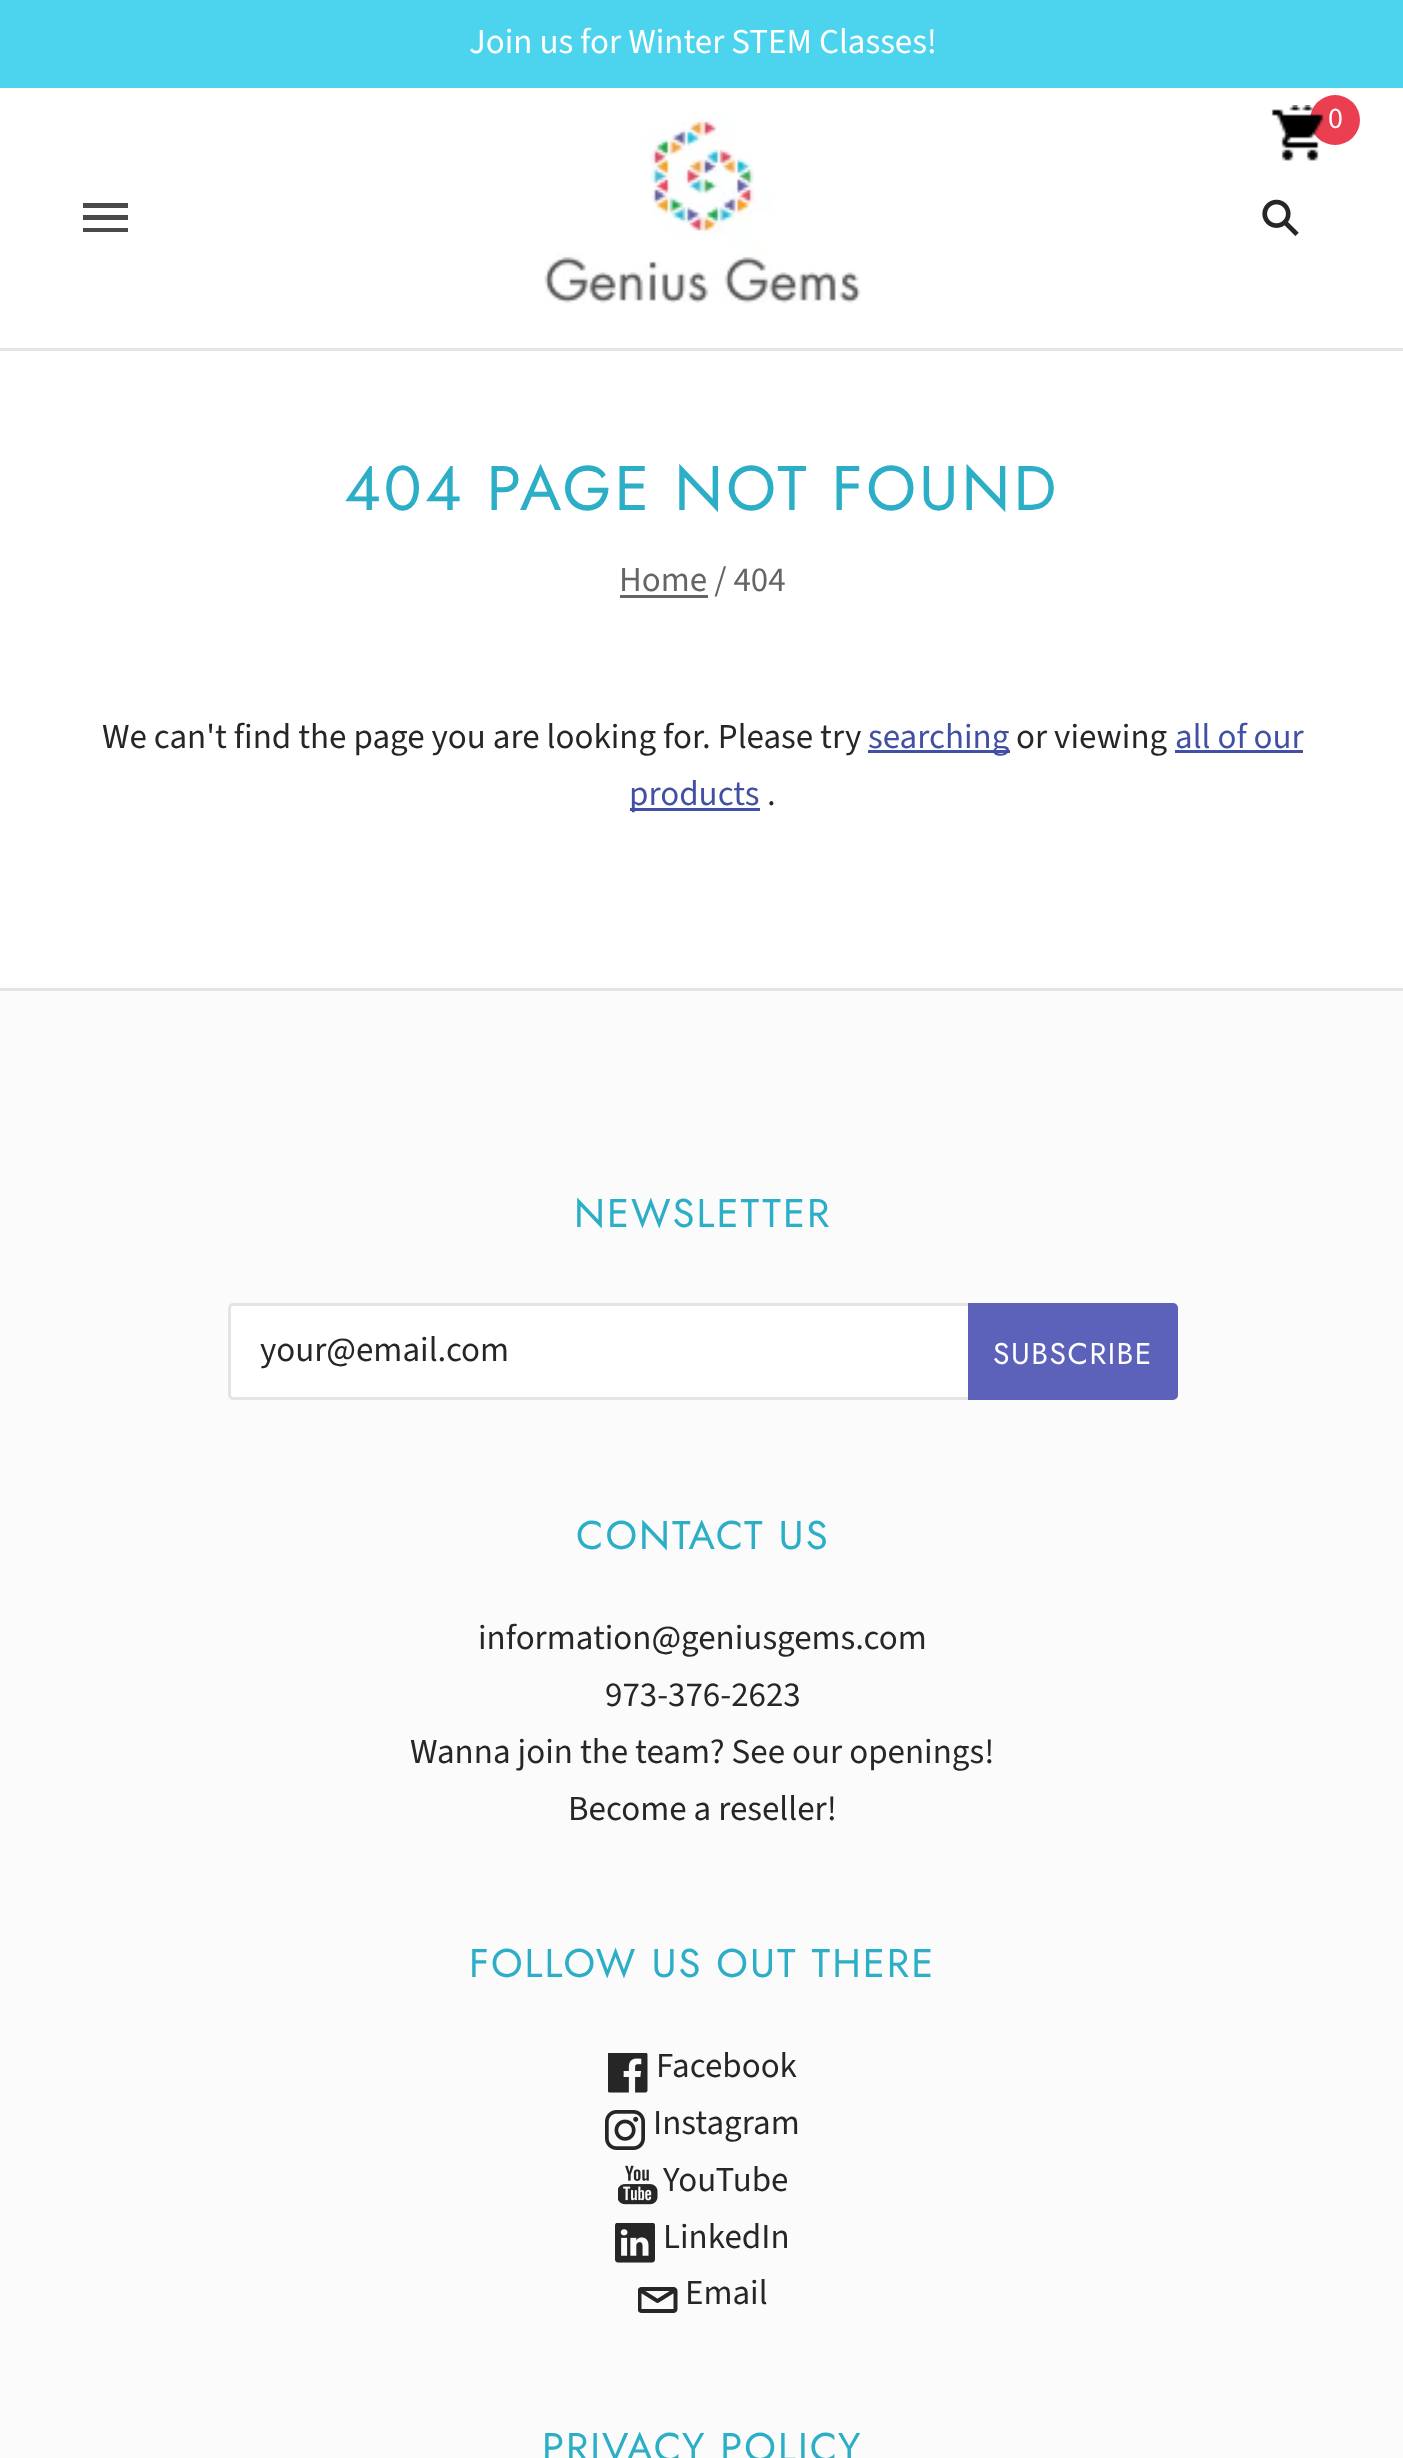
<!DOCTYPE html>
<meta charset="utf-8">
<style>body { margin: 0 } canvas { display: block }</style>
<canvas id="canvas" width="1403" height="2458"></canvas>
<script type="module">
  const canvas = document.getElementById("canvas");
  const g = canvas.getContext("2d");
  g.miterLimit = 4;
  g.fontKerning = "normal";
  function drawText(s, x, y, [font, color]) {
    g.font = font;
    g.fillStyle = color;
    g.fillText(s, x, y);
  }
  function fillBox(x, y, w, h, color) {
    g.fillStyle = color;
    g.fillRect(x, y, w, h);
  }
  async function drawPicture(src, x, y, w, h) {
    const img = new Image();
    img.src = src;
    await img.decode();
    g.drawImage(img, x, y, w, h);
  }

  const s1 = ["35px Source Sans Pro", "#FFFFFF"];
  const s2 = ["30px Source Sans Pro", "#FFFFFF"];
  const s3 = ["63px Jost", "#2CAEC7"];
  const s4 = ["35px Source Sans Pro", "#656565"];
  const s5 = ["35px Source Sans Pro", "#262626"];
  const s6 = ["35px Source Sans Pro", "#414FA4"];
  const s7 = ["40px Jost", "#2CAEC7"];
  const s8 = ["30px Jost", "#FFFFFF"];

  fillBox(0, 0, 1403, 2458, "#FFFFFF");
  fillBox(0, 0, 1403, 88, "#4CD3EE");
  drawText("Join us for Winter STEM Classes!", 469, 53, s1);
  fillBox(0, 348, 1403, 3, "#E4E4E4");
  g.save();
  g.beginPath();
  g.rect(83, 203, 45, 30);
  g.clip();
  g.fillStyle = "#494949";
  g.beginPath();
  g.moveTo(82, 202);
  g.lineTo(128, 202);
  g.lineTo(128, 208);
  g.lineTo(82, 208);
  g.closePath();
  g.moveTo(82, 215);
  g.lineTo(128, 215);
  g.lineTo(128, 220);
  g.lineTo(82, 220);
  g.closePath();
  g.moveTo(82, 228);
  g.lineTo(128, 228);
  g.lineTo(128, 232);
  g.lineTo(82, 232);
  g.closePath();
  g.fill("evenodd");
  g.restore();
  await drawPicture("pic1.png", 544, 118, 317, 186);
  g.fillStyle = "#EB3E51";
  g.beginPath();
  g.arc(1335, 120, 25, 0, Math.PI * 2);
  g.fill();
  await drawPicture("pic2.png", 1271, 105, 53, 56);
  drawText("0", 1328, 128, s2);
  await drawPicture("pic3.png", 1262, 199, 37, 37);
  g.letterSpacing = "3.1px";
  drawText("404 PAGE NOT FOUND", 344, 510, s3);
  fillBox(620, 595, 88, 3, "#656565");
  g.letterSpacing = "0px";
  drawText("Home / 404", 619, 591, s4);
  drawText("We can't find the page you are looking for. Please try", 102, 748, s5);
  fillBox(868, 750, 142, 3, "#414FA4");
  drawText("searching", 868, 748, s6);
  drawText("or viewing", 1016, 748, s5);
  drawText("all of our", 1175, 748, s6);
  fillBox(1175, 750, 128, 3, "#414FA4");
  fillBox(630, 808, 130, 3, "#414FA4");
  drawText("products", 629, 805, s6);
  drawText(".", 767, 805, s5);
  fillBox(0, 991, 1403, 1467, "#FBFBFB");
  fillBox(0, 988, 1403, 3, "#E4E4E4");
  g.letterSpacing = "2px";
  drawText("NEWSLETTER", 574, 1227, s7);
  g.fillStyle = "#FFFFFF";
  g.beginPath();
  g.roundRect(229.5, 1304.5, 847, 94, 3.5);
  g.fill();
  g.strokeStyle = "#E4E4E4";
  g.lineWidth = 3;
  g.stroke();
  g.letterSpacing = "0px";
  drawText("your@email.com", 260, 1361, s5);
  g.fillStyle = "#5C61B9";
  g.beginPath();
  g.roundRect(968, 1303, 210, 97, [0, 5, 5, 0]);
  g.fill();
  g.letterSpacing = "1.5px";
  drawText("SUBSCRIBE", 993, 1364, s8);
  g.letterSpacing = "2px";
  drawText("CONTACT US", 576, 1549, s7);
  g.letterSpacing = "0px";
  drawText("information@geniusgems.com", 478, 1649, s5);
  drawText("973-376-2623", 605, 1706, s5);
  drawText("Wanna join the team? See our openings!", 410, 1763, s5);
  drawText("Become a reseller!", 568, 1820, s5);
  g.letterSpacing = "2px";
  drawText("FOLLOW US OUT THERE", 469, 1977, s7);
  await drawPicture("pic4.png", 608, 2053, 40, 40);
  g.letterSpacing = "0px";
  drawText("Facebook", 656, 2077, s5);
  await drawPicture("pic5.png", 605, 2110, 40, 40);
  drawText("Instagram", 653, 2134, s5);
  await drawPicture("pic6.png", 618, 2165, 40, 40);
  drawText("YouTube", 663, 2191, s5);
  await drawPicture("pic7.png", 615, 2223, 40, 40);
  drawText("LinkedIn", 663, 2248, s5);
  await drawPicture("pic8.png", 638, 2287, 40, 26);
  drawText("Email", 685, 2304, s5);
  g.letterSpacing = "2px";
  drawText("PRIVACY POLICY", 542, 2461, s7);
</script>
